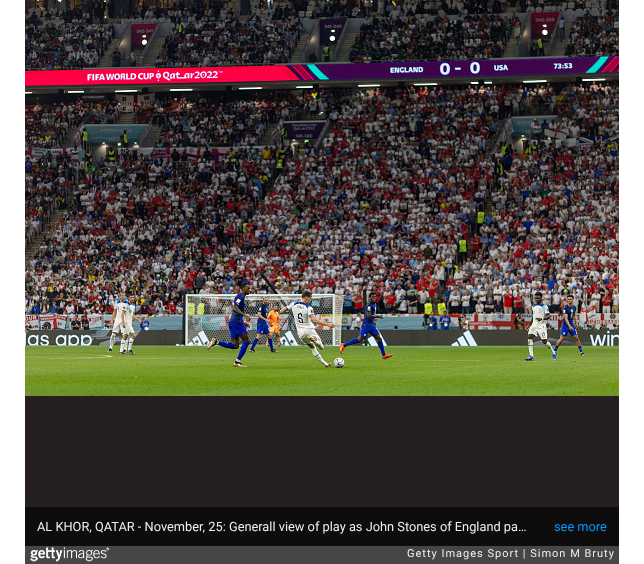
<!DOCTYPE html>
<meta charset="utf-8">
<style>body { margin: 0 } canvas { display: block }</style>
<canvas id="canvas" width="644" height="564"></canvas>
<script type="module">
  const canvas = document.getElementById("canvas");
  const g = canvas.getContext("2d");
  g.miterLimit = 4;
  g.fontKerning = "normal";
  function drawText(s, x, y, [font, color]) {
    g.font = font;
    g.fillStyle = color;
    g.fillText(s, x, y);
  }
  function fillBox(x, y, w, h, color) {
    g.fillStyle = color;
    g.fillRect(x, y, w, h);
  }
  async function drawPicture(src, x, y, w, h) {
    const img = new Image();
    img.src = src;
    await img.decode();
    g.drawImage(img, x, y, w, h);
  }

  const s1 = ["12.8px Roboto", "#EEEEEE"];
  const s2 = ["12.8px Roboto", "#0099FF"];
  const s3 = ["11px Roboto", "#EEEEEE"];

  fillBox(0, 0, 644, 564, "#FFFFFF");
  fillBox(25, 396, 594, 111, "#251F20");
  await drawPicture("pic1.png", 25, 0, 594, 396);
  fillBox(25, 507, 594, 39, "#0F0C0D");
  drawText("AL KHOR, QATAR - November, 25: Generall view of play as John Stones of England pa…", 37, 531, s1);
  drawText("see more", 554, 531, s2);
  fillBox(25, 546, 594, 18, "#474545");
  await drawPicture("pic2.png", 30, 547, 80, 15);
  g.letterSpacing = "1px";
  drawText("Getty Images Sport | Simon M Bruty", 407, 557, s3);
</script>
